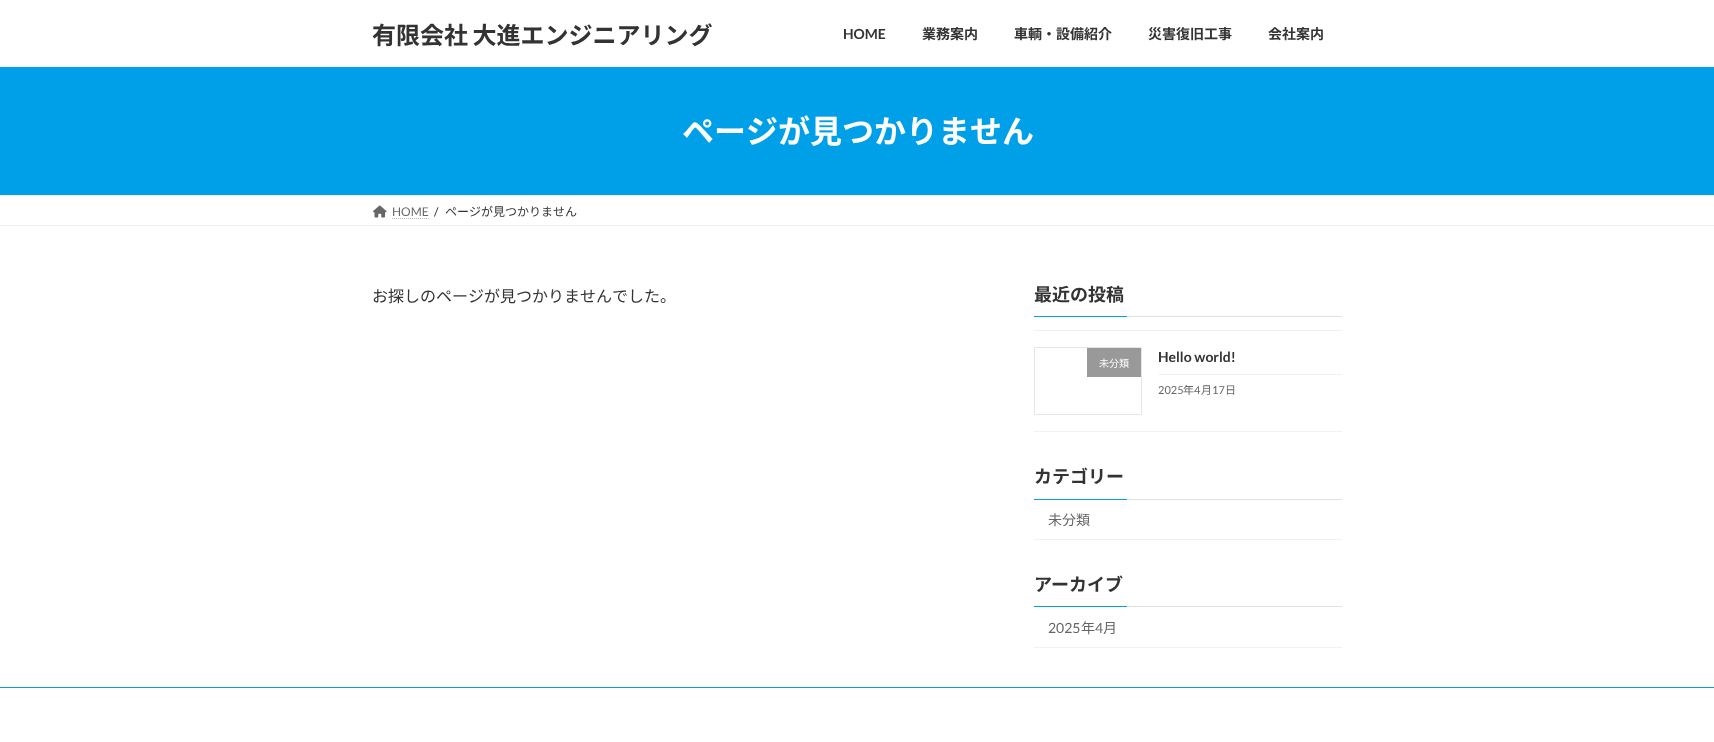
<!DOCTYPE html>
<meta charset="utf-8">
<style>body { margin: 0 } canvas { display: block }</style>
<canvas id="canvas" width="1714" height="742"></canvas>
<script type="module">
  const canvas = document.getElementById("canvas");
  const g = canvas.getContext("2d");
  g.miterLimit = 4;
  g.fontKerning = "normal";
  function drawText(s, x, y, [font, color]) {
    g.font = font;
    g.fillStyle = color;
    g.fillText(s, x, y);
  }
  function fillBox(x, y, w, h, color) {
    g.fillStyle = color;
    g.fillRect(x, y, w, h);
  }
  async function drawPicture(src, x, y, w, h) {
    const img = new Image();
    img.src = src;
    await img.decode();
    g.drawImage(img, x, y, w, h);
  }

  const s1 = ["bold 24px Noto Sans JP", "#333333"];
  const s2 = ["bold 14px Lato", "#333333"];
  const s3 = ["bold 14px Noto Sans JP", "#333333"];
  const s4 = ["bold 32px Noto Sans JP", "#FFFFFF"];
  const s5 = ["12px Lato", "#666666"];
  const s6 = ["12px Lato", "#333333"];
  const s7 = ["12px Noto Sans JP", "#333333"];
  const s8 = ["16px Noto Sans JP", "#333333"];
  const s9 = ["bold 18px Noto Sans JP", "#333333"];
  const s10 = ["10px Noto Sans JP", "#FFFFFF"];
  const s11 = ["11px Lato", "#666666"];
  const s12 = ["11px Noto Sans JP", "#666666"];
  const s13 = ["14px Noto Sans JP", "#666666"];
  const s14 = ["14px Lato", "#666666"];

  fillBox(0, 0, 1714, 742, "#FFFFFF");
  g.wordSpacing = "-1px";
  drawText("有限会社 大進エンジニアリング", 372, 44, s1);
  g.wordSpacing = "0px";
  drawText("HOME", 843, 39, s2);
  drawText("業務案内", 922, 39, s3);
  drawText("車輌・設備紹介", 1014, 39, s3);
  drawText("災害復旧工事", 1148, 39, s3);
  drawText("会社案内", 1268, 39, s3);
  fillBox(0, 67, 1714, 128, "#00A0E9");
  drawText("ページが見つかりません", 682, 143, s4);
  fillBox(0, 195, 1714, 1, "#F0F0F0");
  fillBox(0, 225, 1714, 1, "#F0F0F0");
  await drawPicture("pic1.png", 373, 205, 14, 13);
  drawText("HOME", 392, 216, s5);
  g.beginPath();
  g.moveTo(392, 218.5);
  g.lineTo(428.5, 218.5);
  g.strokeStyle = "#B3B3B3";
  g.setLineDash([1, 1]);
  g.stroke();
  drawText("/", 434, 216, s6);
  drawText("ページが見つかりません", 445, 216, s7);
  drawText("お探しのページが見つかりませんでした。", 372, 302, s8);
  fillBox(1127, 316, 215, 1, "#E0E0E0");
  drawText("最近の投稿", 1034, 301, s9);
  fillBox(1034, 316, 93, 1, "#00A0E9");
  fillBox(1034, 330, 308, 1, "#F0F0F0");
  fillBox(1034, 431, 308, 1, "#F0F0F0");
  g.strokeStyle = "#E5E5E5";
  g.setLineDash([]);
  g.strokeRect(1034.5, 347.5, 107, 67);
  fillBox(1087, 348, 54, 29, "#999999");
  drawText("未分類", 1099, 367, s10);
  fillBox(1158, 374, 184, 1, "#F0F0F0");
  drawText("Hello world!", 1158, 362, s2);
  drawText("2025", 1158, 394, s11);
  drawText("年", 1183, 394, s12);
  drawText("4", 1194, 394, s11);
  drawText("月", 1201, 394, s12);
  drawText("17", 1212, 394, s11);
  drawText("日", 1225, 394, s12);
  fillBox(1127, 499, 215, 1, "#E0E0E0");
  drawText("カテゴリー", 1034, 483, s9);
  fillBox(1034, 499, 93, 1, "#00A0E9");
  fillBox(1034, 539, 308, 1, "#F0F0F0");
  drawText("未分類", 1048, 525, s13);
  fillBox(1127, 606, 215, 1, "#E0E0E0");
  drawText("アーカイブ", 1034, 591, s9);
  fillBox(1034, 606, 93, 1, "#00A0E9");
  fillBox(1034, 647, 308, 1, "#F0F0F0");
  drawText("2025", 1048, 633, s14);
  drawText("年", 1081, 633, s13);
  drawText("4", 1095, 633, s14);
  drawText("月", 1103, 633, s13);
  fillBox(0, 687, 1714, 1, "#00A0E9");
</script>
